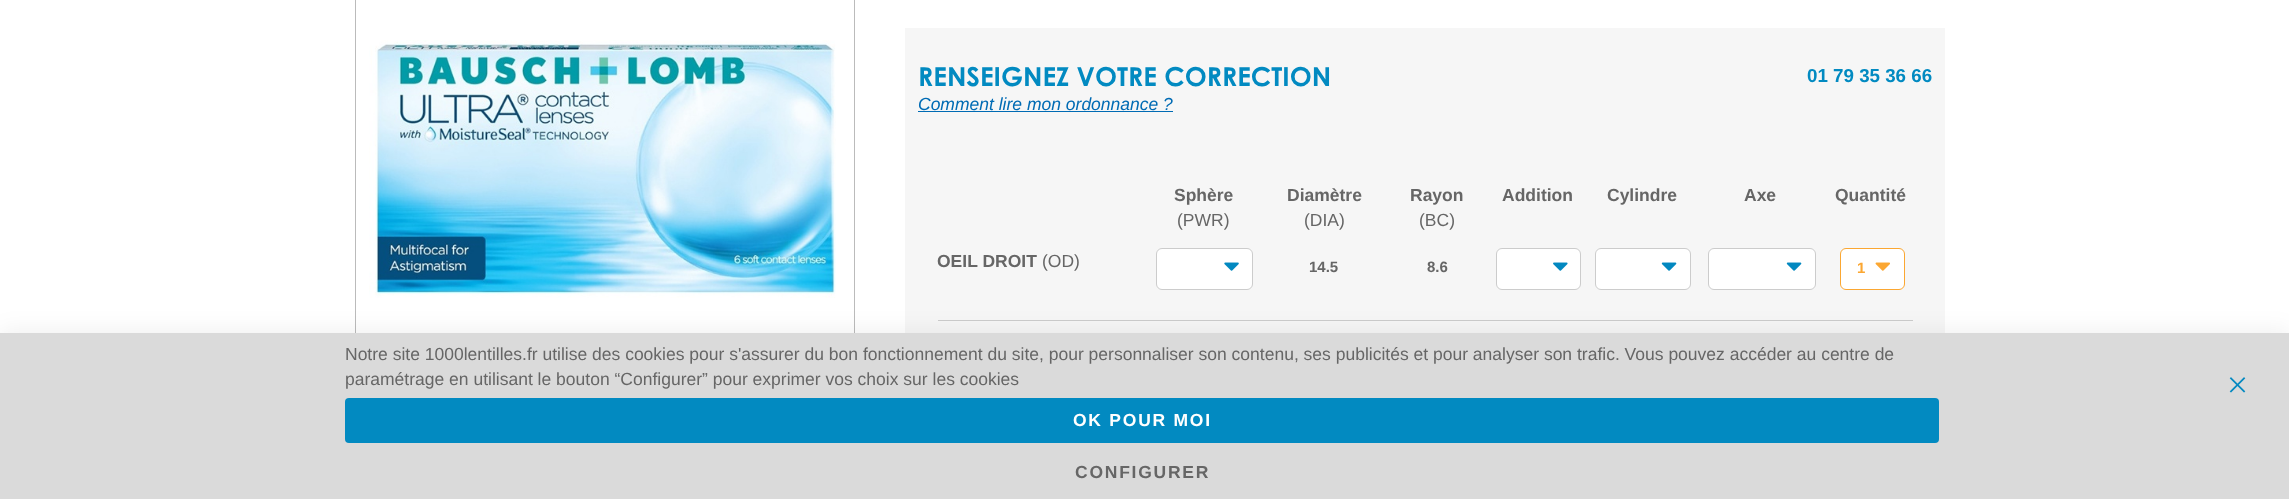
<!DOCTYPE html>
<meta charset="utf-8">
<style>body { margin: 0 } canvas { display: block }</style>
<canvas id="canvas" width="2289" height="499"></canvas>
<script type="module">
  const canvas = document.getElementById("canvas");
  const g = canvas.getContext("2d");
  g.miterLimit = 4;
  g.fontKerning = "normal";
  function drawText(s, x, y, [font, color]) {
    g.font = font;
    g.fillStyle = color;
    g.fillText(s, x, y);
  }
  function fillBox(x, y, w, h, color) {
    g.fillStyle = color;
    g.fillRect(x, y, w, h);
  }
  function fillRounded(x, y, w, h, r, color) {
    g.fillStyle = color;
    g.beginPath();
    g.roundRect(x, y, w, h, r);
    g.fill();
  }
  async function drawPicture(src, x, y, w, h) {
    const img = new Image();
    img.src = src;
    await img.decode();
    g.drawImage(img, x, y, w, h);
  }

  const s1 = ["bold 26.25px Century Gothic", "#028AC1"];
  const s2 = ["bold 18.75px Liberation Sans", "#028AC1"];
  const s3 = ["italic 17.5px Liberation Sans", "#006BB4"];
  const s4 = ["bold 17.5px Liberation Sans", "#666666"];
  const s5 = ["17.5px Liberation Sans", "#666666"];
  const s6 = ["bold 15px Liberation Sans", "#666666"];
  const s7 = ["bold 15px Liberation Sans", "#FBA732"];
  const s8 = ["bold 17.5px Liberation Sans", "#FFFFFF"];

  fillBox(0, 0, 2289, 499, "#FFFFFF");
  g.strokeStyle = "#BBBBBB";
  g.strokeRect(355.5, -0.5, 499, 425);
  await drawPicture("pic1.png", 369, 40, 467, 258);
  fillBox(905, 28, 1040, 305, "#F6F6F6");
  drawText("RENSEIGNEZ VOTRE CORRECTION", 918, 86, s1);
  drawText("01 79 35 36 66", 1807, 82, s2);
  drawText("Comment lire mon ordonnance ?", 918, 110, s3);
  fillBox(918, 111, 255, 1, "#006BB4");
  drawText("Sphère", 1174, 201, s4);
  drawText("(PWR)", 1177, 226, s5);
  drawText("Diamètre", 1287, 201, s4);
  drawText("(DIA)", 1304, 226, s5);
  drawText("Rayon", 1410, 201, s4);
  drawText("(BC)", 1419, 226, s5);
  drawText("Addition", 1502, 201, s4);
  drawText("Cylindre", 1607, 201, s4);
  drawText("Axe", 1744, 201, s4);
  drawText("Quantité", 1835, 201, s4);
  drawText("OEIL DROIT", 937, 267, s4);
  drawText("(OD)", 1042, 267, s5);
  g.fillStyle = "#FFFFFF";
  g.beginPath();
  g.roundRect(1156.5, 248.5, 96, 41, 5.5);
  g.fill();
  g.strokeStyle = "#CCCCCC";
  g.stroke();
  await drawPicture("pic2.png", 1224, 262, 15, 9);
  drawText("14.5", 1309, 272, s6);
  drawText("8.6", 1427, 272, s6);
  g.fillStyle = "#FFFFFF";
  g.beginPath();
  g.roundRect(1496.5, 248.5, 84, 41, 5.5);
  g.fill();
  g.stroke();
  await drawPicture("pic3.png", 1553, 262, 15, 9);
  g.beginPath();
  g.roundRect(1595.5, 248.5, 95, 41, 5.5);
  g.fill();
  g.stroke();
  await drawPicture("pic4.png", 1661, 262, 16, 9);
  g.beginPath();
  g.roundRect(1708.5, 248.5, 107, 41, 5.5);
  g.fill();
  g.stroke();
  await drawPicture("pic4.png", 1786, 262, 16, 9);
  g.beginPath();
  g.roundRect(1840.5, 248.5, 64, 41, 5.5);
  g.fill();
  g.strokeStyle = "#FBA732";
  g.stroke();
  drawText("1", 1857, 273, s7);
  await drawPicture("pic5.png", 1875, 262, 15, 9);
  fillBox(938, 320, 975, 1, "#CCCCCC");
  g.fillStyle = "rgba(0, 0, 0, 0.06)";
  g.filter = "blur(11px)";
  g.beginPath();
  g.rect(0, 330, 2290, 168);
  g.fill();
  g.filter = "none";
  fillBox(0, 333, 2289, 166, "#DADADA");
  drawText("Notre site 1000lentilles.fr utilise des cookies pour s'assurer du bon fonctionnement du site, pour personnaliser son contenu, ses publicités et pour analyser son trafic. Vous pouvez accéder au centre de", 345, 360, s5);
  drawText("paramétrage en utilisant le bouton “Configurer” pour exprimer vos choix sur les cookies", 345, 385, s5);
  fillRounded(345, 398, 1594, 45, 4, "#028AC1");
  g.letterSpacing = "1.75px";
  drawText("OK POUR MOI", 1073, 426, s8);
  drawText("CONFIGURER", 1075, 478, s4);
  await drawPicture("pic6.png", 2229, 377, 17, 16);
</script>
